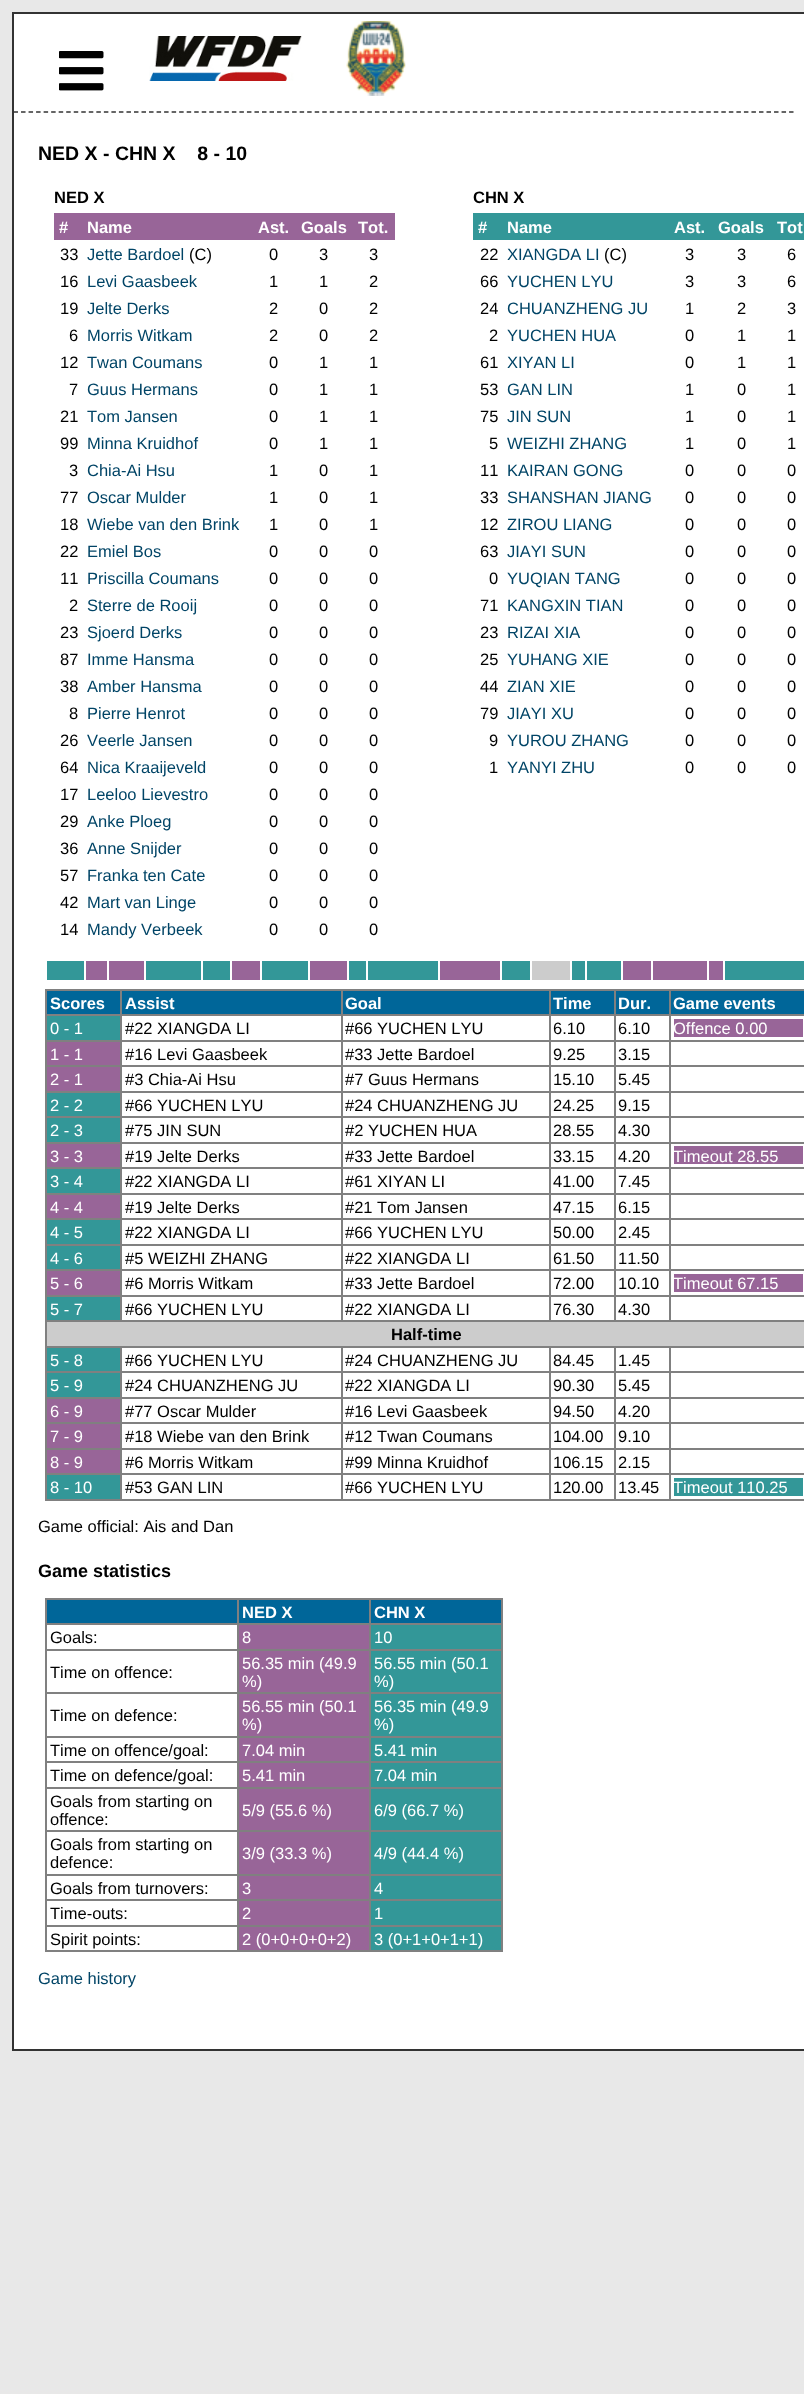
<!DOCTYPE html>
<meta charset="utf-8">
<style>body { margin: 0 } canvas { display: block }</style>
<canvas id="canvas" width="804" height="2394"></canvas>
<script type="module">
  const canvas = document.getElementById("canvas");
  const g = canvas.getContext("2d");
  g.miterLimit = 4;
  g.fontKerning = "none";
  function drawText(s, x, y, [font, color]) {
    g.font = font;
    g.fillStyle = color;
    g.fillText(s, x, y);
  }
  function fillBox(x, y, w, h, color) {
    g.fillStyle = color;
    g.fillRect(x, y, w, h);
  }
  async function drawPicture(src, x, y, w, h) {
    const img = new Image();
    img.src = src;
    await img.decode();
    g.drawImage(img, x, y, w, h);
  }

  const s1 = ["bold 19.5px Liberation Sans", "#000000"];
  const s2 = ["bold 16.5px Liberation Sans", "#000000"];
  const s3 = ["bold 16.5px Liberation Sans", "#FFFFFF"];
  const s4 = ["16.5px Liberation Sans", "#000000"];
  const s5 = ["16.5px Liberation Sans", "#004466"];
  const s6 = ["16.5px Liberation Sans", "#FFFFFF"];
  const s7 = ["bold 18px Liberation Sans", "#000000"];

  fillBox(0, 0, 804, 2394, "#E8E8E8");
  g.fillStyle = "#FFFFFF";
  g.beginPath();
  g.rect(13, 13, 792, 2037);
  g.fill();
  g.strokeStyle = "#333333";
  g.lineWidth = 2;
  g.stroke();
  g.beginPath();
  g.moveTo(13.5, 112);
  g.lineTo(793.5, 112);
  g.lineWidth = 1.5;
  g.setLineDash([4.5, 3.03]);
  g.stroke();
  await drawPicture("pic1.png", 59, 51, 45, 40);
  await drawPicture("pic2.png", 149, 36, 153, 45);
  await drawPicture("pic3.png", 346, 21, 60, 75);
  drawText("NED X - CHN X    8 - 10", 38, 160, s1);
  drawText("NED X", 54, 203, s2);
  fillBox(54, 213, 341, 27, "#986598");
  drawText("#", 59, 233, s3);
  drawText("Name", 87, 233, s3);
  drawText("Ast.", 258, 233, s3);
  drawText("Goals", 301, 233, s3);
  drawText("Tot.", 358, 233, s3);
  drawText("33", 60, 260, s4);
  drawText("Jette Bardoel", 87, 260, s5);
  drawText("(C)", 189, 260, s4);
  drawText("0", 269, 260, s4);
  drawText("3", 319, 260, s4);
  drawText("3", 369, 260, s4);
  drawText("16", 60, 287, s4);
  drawText("Levi Gaasbeek", 87, 287, s5);
  drawText("1", 269, 287, s4);
  drawText("1", 319, 287, s4);
  drawText("2", 369, 287, s4);
  drawText("19", 60, 314, s4);
  drawText("Jelte Derks", 87, 314, s5);
  drawText("2", 269, 314, s4);
  drawText("0", 319, 314, s4);
  drawText("2", 369, 314, s4);
  drawText("6", 69, 341, s4);
  drawText("Morris Witkam", 87, 341, s5);
  drawText("2", 269, 341, s4);
  drawText("0", 319, 341, s4);
  drawText("2", 369, 341, s4);
  drawText("12", 60, 368, s4);
  drawText("Twan Coumans", 87, 368, s5);
  drawText("0", 269, 368, s4);
  drawText("1", 319, 368, s4);
  drawText("1", 369, 368, s4);
  drawText("7", 69, 395, s4);
  drawText("Guus Hermans", 87, 395, s5);
  drawText("0", 269, 395, s4);
  drawText("1", 319, 395, s4);
  drawText("1", 369, 395, s4);
  drawText("21", 60, 422, s4);
  drawText("Tom Jansen", 87, 422, s5);
  drawText("0", 269, 422, s4);
  drawText("1", 319, 422, s4);
  drawText("1", 369, 422, s4);
  drawText("99", 60, 449, s4);
  drawText("Minna Kruidhof", 87, 449, s5);
  drawText("0", 269, 449, s4);
  drawText("1", 319, 449, s4);
  drawText("1", 369, 449, s4);
  drawText("3", 69, 476, s4);
  drawText("Chia-Ai Hsu", 87, 476, s5);
  drawText("1", 269, 476, s4);
  drawText("0", 319, 476, s4);
  drawText("1", 369, 476, s4);
  drawText("77", 60, 503, s4);
  drawText("Oscar Mulder", 87, 503, s5);
  drawText("1", 269, 503, s4);
  drawText("0", 319, 503, s4);
  drawText("1", 369, 503, s4);
  drawText("18", 60, 530, s4);
  drawText("Wiebe van den Brink", 87, 530, s5);
  drawText("1", 269, 530, s4);
  drawText("0", 319, 530, s4);
  drawText("1", 369, 530, s4);
  drawText("22", 60, 557, s4);
  drawText("Emiel Bos", 87, 557, s5);
  drawText("0", 269, 557, s4);
  drawText("0", 319, 557, s4);
  drawText("0", 369, 557, s4);
  drawText("11", 60, 584, s4);
  drawText("Priscilla Coumans", 87, 584, s5);
  drawText("0", 269, 584, s4);
  drawText("0", 319, 584, s4);
  drawText("0", 369, 584, s4);
  drawText("2", 69, 611, s4);
  drawText("Sterre de Rooij", 87, 611, s5);
  drawText("0", 269, 611, s4);
  drawText("0", 319, 611, s4);
  drawText("0", 369, 611, s4);
  drawText("23", 60, 638, s4);
  drawText("Sjoerd Derks", 87, 638, s5);
  drawText("0", 269, 638, s4);
  drawText("0", 319, 638, s4);
  drawText("0", 369, 638, s4);
  drawText("87", 60, 665, s4);
  drawText("Imme Hansma", 87, 665, s5);
  drawText("0", 269, 665, s4);
  drawText("0", 319, 665, s4);
  drawText("0", 369, 665, s4);
  drawText("38", 60, 692, s4);
  drawText("Amber Hansma", 87, 692, s5);
  drawText("0", 269, 692, s4);
  drawText("0", 319, 692, s4);
  drawText("0", 369, 692, s4);
  drawText("8", 69, 719, s4);
  drawText("Pierre Henrot", 87, 719, s5);
  drawText("0", 269, 719, s4);
  drawText("0", 319, 719, s4);
  drawText("0", 369, 719, s4);
  drawText("26", 60, 746, s4);
  drawText("Veerle Jansen", 87, 746, s5);
  drawText("0", 269, 746, s4);
  drawText("0", 319, 746, s4);
  drawText("0", 369, 746, s4);
  drawText("64", 60, 773, s4);
  drawText("Nica Kraaijeveld", 87, 773, s5);
  drawText("0", 269, 773, s4);
  drawText("0", 319, 773, s4);
  drawText("0", 369, 773, s4);
  drawText("17", 60, 800, s4);
  drawText("Leeloo Lievestro", 87, 800, s5);
  drawText("0", 269, 800, s4);
  drawText("0", 319, 800, s4);
  drawText("0", 369, 800, s4);
  drawText("29", 60, 827, s4);
  drawText("Anke Ploeg", 87, 827, s5);
  drawText("0", 269, 827, s4);
  drawText("0", 319, 827, s4);
  drawText("0", 369, 827, s4);
  drawText("36", 60, 854, s4);
  drawText("Anne Snijder", 87, 854, s5);
  drawText("0", 269, 854, s4);
  drawText("0", 319, 854, s4);
  drawText("0", 369, 854, s4);
  drawText("57", 60, 881, s4);
  drawText("Franka ten Cate", 87, 881, s5);
  drawText("0", 269, 881, s4);
  drawText("0", 319, 881, s4);
  drawText("0", 369, 881, s4);
  drawText("42", 60, 908, s4);
  drawText("Mart van Linge", 87, 908, s5);
  drawText("0", 269, 908, s4);
  drawText("0", 319, 908, s4);
  drawText("0", 369, 908, s4);
  drawText("14", 60, 935, s4);
  drawText("Mandy Verbeek", 87, 935, s5);
  drawText("0", 269, 935, s4);
  drawText("0", 319, 935, s4);
  drawText("0", 369, 935, s4);
  drawText("CHN X", 473, 203, s2);
  fillBox(473, 213, 331, 27, "#339798");
  drawText("#", 478, 233, s3);
  drawText("Name", 507, 233, s3);
  drawText("Ast.", 674, 233, s3);
  drawText("Goals", 718, 233, s3);
  drawText("Tot", 777, 233, s3);
  drawText("22", 480, 260, s4);
  drawText("XIANGDA LI", 507, 260, s5);
  drawText("(C)", 604, 260, s4);
  drawText("3", 685, 260, s4);
  drawText("3", 737, 260, s4);
  drawText("6", 787, 260, s4);
  drawText("66", 480, 287, s4);
  drawText("YUCHEN LYU", 507, 287, s5);
  drawText("3", 685, 287, s4);
  drawText("3", 737, 287, s4);
  drawText("6", 787, 287, s4);
  drawText("24", 480, 314, s4);
  drawText("CHUANZHENG JU", 507, 314, s5);
  drawText("1", 685, 314, s4);
  drawText("2", 737, 314, s4);
  drawText("3", 787, 314, s4);
  drawText("2", 489, 341, s4);
  drawText("YUCHEN HUA", 507, 341, s5);
  drawText("0", 685, 341, s4);
  drawText("1", 737, 341, s4);
  drawText("1", 787, 341, s4);
  drawText("61", 480, 368, s4);
  drawText("XIYAN LI", 507, 368, s5);
  drawText("0", 685, 368, s4);
  drawText("1", 737, 368, s4);
  drawText("1", 787, 368, s4);
  drawText("53", 480, 395, s4);
  drawText("GAN LIN", 507, 395, s5);
  drawText("1", 685, 395, s4);
  drawText("0", 737, 395, s4);
  drawText("1", 787, 395, s4);
  drawText("75", 480, 422, s4);
  drawText("JIN SUN", 507, 422, s5);
  drawText("1", 685, 422, s4);
  drawText("0", 737, 422, s4);
  drawText("1", 787, 422, s4);
  drawText("5", 489, 449, s4);
  drawText("WEIZHI ZHANG", 507, 449, s5);
  drawText("1", 685, 449, s4);
  drawText("0", 737, 449, s4);
  drawText("1", 787, 449, s4);
  drawText("11", 480, 476, s4);
  drawText("KAIRAN GONG", 507, 476, s5);
  drawText("0", 685, 476, s4);
  drawText("0", 737, 476, s4);
  drawText("0", 787, 476, s4);
  drawText("33", 480, 503, s4);
  drawText("SHANSHAN JIANG", 507, 503, s5);
  drawText("0", 685, 503, s4);
  drawText("0", 737, 503, s4);
  drawText("0", 787, 503, s4);
  drawText("12", 480, 530, s4);
  drawText("ZIROU LIANG", 507, 530, s5);
  drawText("0", 685, 530, s4);
  drawText("0", 737, 530, s4);
  drawText("0", 787, 530, s4);
  drawText("63", 480, 557, s4);
  drawText("JIAYI SUN", 507, 557, s5);
  drawText("0", 685, 557, s4);
  drawText("0", 737, 557, s4);
  drawText("0", 787, 557, s4);
  drawText("0", 489, 584, s4);
  drawText("YUQIAN TANG", 507, 584, s5);
  drawText("0", 685, 584, s4);
  drawText("0", 737, 584, s4);
  drawText("0", 787, 584, s4);
  drawText("71", 480, 611, s4);
  drawText("KANGXIN TIAN", 507, 611, s5);
  drawText("0", 685, 611, s4);
  drawText("0", 737, 611, s4);
  drawText("0", 787, 611, s4);
  drawText("23", 480, 638, s4);
  drawText("RIZAI XIA", 507, 638, s5);
  drawText("0", 685, 638, s4);
  drawText("0", 737, 638, s4);
  drawText("0", 787, 638, s4);
  drawText("25", 480, 665, s4);
  drawText("YUHANG XIE", 507, 665, s5);
  drawText("0", 685, 665, s4);
  drawText("0", 737, 665, s4);
  drawText("0", 787, 665, s4);
  drawText("44", 480, 692, s4);
  drawText("ZIAN XIE", 507, 692, s5);
  drawText("0", 685, 692, s4);
  drawText("0", 737, 692, s4);
  drawText("0", 787, 692, s4);
  drawText("79", 480, 719, s4);
  drawText("JIAYI XU", 507, 719, s5);
  drawText("0", 685, 719, s4);
  drawText("0", 737, 719, s4);
  drawText("0", 787, 719, s4);
  drawText("9", 489, 746, s4);
  drawText("YUROU ZHANG", 507, 746, s5);
  drawText("0", 685, 746, s4);
  drawText("0", 737, 746, s4);
  drawText("0", 787, 746, s4);
  drawText("1", 489, 773, s4);
  drawText("YANYI ZHU", 507, 773, s5);
  drawText("0", 685, 773, s4);
  drawText("0", 737, 773, s4);
  drawText("0", 787, 773, s4);
  fillBox(47, 961, 37, 19, "#339798");
  fillBox(86, 961, 21, 19, "#986598");
  fillBox(109, 961, 35, 19, "#986598");
  fillBox(146, 961, 55, 19, "#339798");
  fillBox(203, 961, 27, 19, "#339798");
  fillBox(232, 961, 28, 19, "#986598");
  fillBox(262, 961, 46, 19, "#339798");
  fillBox(310, 961, 37, 19, "#986598");
  fillBox(349, 961, 17, 19, "#339798");
  fillBox(368, 961, 70, 19, "#339798");
  fillBox(440, 961, 60, 19, "#986598");
  fillBox(502, 961, 28, 19, "#339798");
  fillBox(532, 961, 38, 19, "#CCCCCC");
  fillBox(572, 961, 13, 19, "#339798");
  fillBox(587, 961, 34, 19, "#339798");
  fillBox(623, 961, 28, 19, "#986598");
  fillBox(653, 961, 54, 19, "#986598");
  fillBox(709, 961, 14, 19, "#986598");
  fillBox(725, 961, 79, 19, "#339798");
  fillBox(45, 989, 759, 2, "#808080");
  fillBox(45, 1499, 759, 2, "#808080");
  fillBox(45, 989, 2, 511, "#808080");
  fillBox(47, 991, 73, 23, "#006699");
  drawText("Scores", 50, 1009, s3);
  fillBox(122, 991, 219, 23, "#006699");
  fillBox(669, 1014, 135, 2, "#808080");
  fillBox(669, 1040, 135, 2, "#808080");
  fillBox(669, 1065, 135, 2, "#808080");
  fillBox(669, 1091, 135, 2, "#808080");
  fillBox(669, 1116, 135, 2, "#808080");
  fillBox(669, 1142, 135, 2, "#808080");
  fillBox(669, 1167, 135, 2, "#808080");
  fillBox(669, 1193, 135, 2, "#808080");
  fillBox(669, 1218, 135, 2, "#808080");
  fillBox(669, 1244, 135, 2, "#808080");
  fillBox(669, 1269, 135, 2, "#808080");
  fillBox(669, 1295, 135, 2, "#808080");
  fillBox(45, 1320, 759, 2, "#808080");
  fillBox(669, 1295, 2, 27, "#808080");
  fillBox(614, 1295, 57, 2, "#808080");
  fillBox(669, 1269, 2, 27, "#808080");
  fillBox(614, 1269, 57, 2, "#808080");
  fillBox(669, 1244, 2, 27, "#808080");
  fillBox(614, 1244, 57, 2, "#808080");
  fillBox(669, 1218, 2, 27, "#808080");
  fillBox(614, 1218, 57, 2, "#808080");
  fillBox(669, 1193, 2, 27, "#808080");
  fillBox(614, 1193, 57, 2, "#808080");
  fillBox(669, 1167, 2, 27, "#808080");
  fillBox(614, 1167, 57, 2, "#808080");
  fillBox(669, 1142, 2, 27, "#808080");
  fillBox(614, 1142, 57, 2, "#808080");
  fillBox(669, 1116, 2, 27, "#808080");
  fillBox(614, 1116, 57, 2, "#808080");
  fillBox(669, 1091, 2, 27, "#808080");
  fillBox(614, 1091, 57, 2, "#808080");
  fillBox(669, 1065, 2, 27, "#808080");
  fillBox(614, 1065, 57, 2, "#808080");
  fillBox(669, 1040, 2, 27, "#808080");
  fillBox(614, 1040, 57, 2, "#808080");
  fillBox(669, 1014, 2, 27, "#808080");
  fillBox(614, 1014, 57, 2, "#808080");
  fillBox(614, 1295, 2, 27, "#808080");
  fillBox(549, 1295, 66, 2, "#808080");
  fillBox(614, 1269, 2, 27, "#808080");
  fillBox(549, 1269, 66, 2, "#808080");
  fillBox(614, 1244, 2, 27, "#808080");
  fillBox(549, 1244, 66, 2, "#808080");
  fillBox(614, 1218, 2, 27, "#808080");
  fillBox(549, 1218, 66, 2, "#808080");
  fillBox(614, 1193, 2, 27, "#808080");
  fillBox(549, 1193, 66, 2, "#808080");
  fillBox(614, 1167, 2, 27, "#808080");
  fillBox(549, 1167, 66, 2, "#808080");
  fillBox(614, 1142, 2, 27, "#808080");
  fillBox(549, 1142, 66, 2, "#808080");
  fillBox(614, 1116, 2, 27, "#808080");
  fillBox(549, 1116, 66, 2, "#808080");
  fillBox(614, 1091, 2, 27, "#808080");
  fillBox(549, 1091, 66, 2, "#808080");
  fillBox(614, 1065, 2, 27, "#808080");
  fillBox(549, 1065, 66, 2, "#808080");
  fillBox(614, 1040, 2, 27, "#808080");
  fillBox(549, 1040, 66, 2, "#808080");
  fillBox(614, 1014, 2, 27, "#808080");
  fillBox(549, 1014, 66, 2, "#808080");
  fillBox(549, 1295, 2, 27, "#808080");
  fillBox(341, 1295, 210, 2, "#808080");
  fillBox(549, 1269, 2, 27, "#808080");
  fillBox(341, 1269, 210, 2, "#808080");
  fillBox(549, 1244, 2, 27, "#808080");
  fillBox(341, 1244, 210, 2, "#808080");
  fillBox(549, 1218, 2, 27, "#808080");
  fillBox(341, 1218, 210, 2, "#808080");
  fillBox(549, 1193, 2, 27, "#808080");
  fillBox(341, 1193, 210, 2, "#808080");
  fillBox(549, 1167, 2, 27, "#808080");
  fillBox(341, 1167, 210, 2, "#808080");
  fillBox(549, 1142, 2, 27, "#808080");
  fillBox(341, 1142, 210, 2, "#808080");
  fillBox(549, 1116, 2, 27, "#808080");
  fillBox(341, 1116, 210, 2, "#808080");
  fillBox(549, 1091, 2, 27, "#808080");
  fillBox(341, 1091, 210, 2, "#808080");
  fillBox(549, 1065, 2, 27, "#808080");
  fillBox(341, 1065, 210, 2, "#808080");
  fillBox(549, 1040, 2, 27, "#808080");
  fillBox(341, 1040, 210, 2, "#808080");
  fillBox(549, 1014, 2, 27, "#808080");
  fillBox(341, 1014, 210, 2, "#808080");
  fillBox(341, 1295, 2, 27, "#808080");
  fillBox(120, 1295, 222, 2, "#808080");
  fillBox(341, 1269, 2, 27, "#808080");
  fillBox(120, 1269, 222, 2, "#808080");
  fillBox(341, 1244, 2, 27, "#808080");
  fillBox(120, 1244, 222, 2, "#808080");
  fillBox(341, 1218, 2, 27, "#808080");
  fillBox(120, 1218, 222, 2, "#808080");
  fillBox(341, 1193, 2, 27, "#808080");
  fillBox(120, 1193, 222, 2, "#808080");
  fillBox(341, 1167, 2, 27, "#808080");
  fillBox(120, 1167, 222, 2, "#808080");
  fillBox(341, 1142, 2, 27, "#808080");
  fillBox(120, 1142, 222, 2, "#808080");
  fillBox(341, 1116, 2, 27, "#808080");
  fillBox(120, 1116, 222, 2, "#808080");
  fillBox(341, 1091, 2, 27, "#808080");
  fillBox(120, 1091, 222, 2, "#808080");
  fillBox(341, 1065, 2, 27, "#808080");
  fillBox(120, 1065, 222, 2, "#808080");
  fillBox(341, 1040, 2, 27, "#808080");
  fillBox(120, 1040, 222, 2, "#808080");
  fillBox(341, 1014, 2, 27, "#808080");
  fillBox(120, 1014, 222, 2, "#808080");
  fillBox(120, 1295, 2, 27, "#808080");
  fillBox(45, 1295, 77, 2, "#808080");
  fillBox(120, 1269, 2, 27, "#808080");
  fillBox(45, 1269, 77, 2, "#808080");
  fillBox(120, 1244, 2, 27, "#808080");
  fillBox(45, 1244, 77, 2, "#808080");
  fillBox(120, 1218, 2, 27, "#808080");
  fillBox(45, 1218, 77, 2, "#808080");
  fillBox(120, 1193, 2, 27, "#808080");
  fillBox(45, 1193, 77, 2, "#808080");
  fillBox(120, 1167, 2, 27, "#808080");
  fillBox(45, 1167, 77, 2, "#808080");
  fillBox(120, 1142, 2, 27, "#808080");
  fillBox(45, 1142, 77, 2, "#808080");
  fillBox(120, 1116, 2, 27, "#808080");
  fillBox(45, 1116, 77, 2, "#808080");
  fillBox(120, 1091, 2, 27, "#808080");
  fillBox(45, 1091, 77, 2, "#808080");
  fillBox(120, 1065, 2, 27, "#808080");
  fillBox(45, 1065, 77, 2, "#808080");
  fillBox(120, 1040, 2, 27, "#808080");
  fillBox(45, 1040, 77, 2, "#808080");
  fillBox(120, 1014, 2, 27, "#808080");
  fillBox(45, 1014, 77, 2, "#808080");
  fillBox(120, 989, 2, 27, "#808080");
  drawText("Assist", 125, 1009, s3);
  fillBox(343, 991, 206, 23, "#006699");
  fillBox(341, 989, 2, 27, "#808080");
  drawText("Goal", 345, 1009, s3);
  fillBox(551, 991, 63, 23, "#006699");
  fillBox(549, 989, 2, 27, "#808080");
  drawText("Time", 553, 1009, s3);
  fillBox(616, 991, 53, 23, "#006699");
  fillBox(614, 989, 2, 27, "#808080");
  drawText("Dur.", 618, 1009, s3);
  fillBox(671, 991, 133, 23, "#006699");
  fillBox(669, 989, 2, 27, "#808080");
  drawText("Game events", 673, 1009, s3);
  fillBox(47, 1016, 73, 24, "#339798");
  drawText("0 - 1", 50, 1034, s6);
  drawText("#22 XIANGDA LI", 125, 1034, s4);
  drawText("#66 YUCHEN LYU", 345, 1034, s4);
  drawText("6.10", 553, 1034, s4);
  drawText("6.10", 618, 1034, s4);
  fillBox(674, 1019, 129, 18, "#986598");
  drawText("Offence 0.00", 673, 1034, s6);
  fillBox(47, 1042, 73, 23, "#986598");
  drawText("1 - 1", 50, 1060, s6);
  drawText("#16 Levi Gaasbeek", 125, 1060, s4);
  drawText("#33 Jette Bardoel", 345, 1060, s4);
  drawText("9.25", 553, 1060, s4);
  drawText("3.15", 618, 1060, s4);
  fillBox(47, 1067, 73, 24, "#986598");
  drawText("2 - 1", 50, 1085, s6);
  drawText("#3 Chia-Ai Hsu", 125, 1085, s4);
  drawText("#7 Guus Hermans", 345, 1085, s4);
  drawText("15.10", 553, 1085, s4);
  drawText("5.45", 618, 1085, s4);
  fillBox(47, 1093, 73, 23, "#339798");
  drawText("2 - 2", 50, 1111, s6);
  drawText("#66 YUCHEN LYU", 125, 1111, s4);
  drawText("#24 CHUANZHENG JU", 345, 1111, s4);
  drawText("24.25", 553, 1111, s4);
  drawText("9.15", 618, 1111, s4);
  fillBox(47, 1118, 73, 24, "#339798");
  drawText("2 - 3", 50, 1136, s6);
  drawText("#75 JIN SUN", 125, 1136, s4);
  drawText("#2 YUCHEN HUA", 345, 1136, s4);
  drawText("28.55", 553, 1136, s4);
  drawText("4.30", 618, 1136, s4);
  fillBox(47, 1144, 73, 23, "#986598");
  drawText("3 - 3", 50, 1162, s6);
  drawText("#19 Jelte Derks", 125, 1162, s4);
  drawText("#33 Jette Bardoel", 345, 1162, s4);
  drawText("33.15", 553, 1162, s4);
  drawText("4.20", 618, 1162, s4);
  fillBox(674, 1146, 129, 18, "#986598");
  drawText("Timeout 28.55", 673, 1162, s6);
  fillBox(47, 1169, 73, 24, "#339798");
  drawText("3 - 4", 50, 1187, s6);
  drawText("#22 XIANGDA LI", 125, 1187, s4);
  drawText("#61 XIYAN LI", 345, 1187, s4);
  drawText("41.00", 553, 1187, s4);
  drawText("7.45", 618, 1187, s4);
  fillBox(47, 1195, 73, 23, "#986598");
  drawText("4 - 4", 50, 1213, s6);
  drawText("#19 Jelte Derks", 125, 1213, s4);
  drawText("#21 Tom Jansen", 345, 1213, s4);
  drawText("47.15", 553, 1213, s4);
  drawText("6.15", 618, 1213, s4);
  fillBox(47, 1220, 73, 24, "#339798");
  drawText("4 - 5", 50, 1238, s6);
  drawText("#22 XIANGDA LI", 125, 1238, s4);
  drawText("#66 YUCHEN LYU", 345, 1238, s4);
  drawText("50.00", 553, 1238, s4);
  drawText("2.45", 618, 1238, s4);
  fillBox(47, 1246, 73, 23, "#339798");
  drawText("4 - 6", 50, 1264, s6);
  drawText("#5 WEIZHI ZHANG", 125, 1264, s4);
  drawText("#22 XIANGDA LI", 345, 1264, s4);
  drawText("61.50", 553, 1264, s4);
  drawText("11.50", 618, 1264, s4);
  fillBox(47, 1271, 73, 24, "#986598");
  drawText("5 - 6", 50, 1289, s6);
  drawText("#6 Morris Witkam", 125, 1289, s4);
  drawText("#33 Jette Bardoel", 345, 1289, s4);
  drawText("72.00", 553, 1289, s4);
  drawText("10.10", 618, 1289, s4);
  fillBox(674, 1274, 129, 18, "#986598");
  drawText("Timeout 67.15", 673, 1289, s6);
  fillBox(47, 1297, 73, 23, "#339798");
  drawText("5 - 7", 50, 1315, s6);
  drawText("#66 YUCHEN LYU", 125, 1315, s4);
  drawText("#22 XIANGDA LI", 345, 1315, s4);
  drawText("76.30", 553, 1315, s4);
  drawText("4.30", 618, 1315, s4);
  fillBox(47, 1322, 757, 24, "#CCCCCC");
  drawText("Half-time", 391, 1340, s2);
  fillBox(47, 1348, 73, 23, "#339798");
  fillBox(669, 1346, 135, 2, "#808080");
  fillBox(669, 1371, 135, 2, "#808080");
  fillBox(669, 1397, 135, 2, "#808080");
  fillBox(669, 1422, 135, 2, "#808080");
  fillBox(669, 1448, 135, 2, "#808080");
  fillBox(669, 1473, 135, 2, "#808080");
  fillBox(669, 1473, 2, 27, "#808080");
  fillBox(614, 1473, 57, 2, "#808080");
  fillBox(669, 1448, 2, 27, "#808080");
  fillBox(614, 1448, 57, 2, "#808080");
  fillBox(669, 1422, 2, 27, "#808080");
  fillBox(614, 1422, 57, 2, "#808080");
  fillBox(669, 1397, 2, 27, "#808080");
  fillBox(614, 1397, 57, 2, "#808080");
  fillBox(669, 1371, 2, 27, "#808080");
  fillBox(614, 1371, 57, 2, "#808080");
  fillBox(669, 1346, 2, 27, "#808080");
  fillBox(614, 1346, 57, 2, "#808080");
  fillBox(614, 1473, 2, 27, "#808080");
  fillBox(549, 1473, 66, 2, "#808080");
  fillBox(614, 1448, 2, 27, "#808080");
  fillBox(549, 1448, 66, 2, "#808080");
  fillBox(614, 1422, 2, 27, "#808080");
  fillBox(549, 1422, 66, 2, "#808080");
  fillBox(614, 1397, 2, 27, "#808080");
  fillBox(549, 1397, 66, 2, "#808080");
  fillBox(614, 1371, 2, 27, "#808080");
  fillBox(549, 1371, 66, 2, "#808080");
  fillBox(614, 1346, 2, 27, "#808080");
  fillBox(549, 1346, 66, 2, "#808080");
  fillBox(549, 1473, 2, 27, "#808080");
  fillBox(341, 1473, 210, 2, "#808080");
  fillBox(549, 1448, 2, 27, "#808080");
  fillBox(341, 1448, 210, 2, "#808080");
  fillBox(549, 1422, 2, 27, "#808080");
  fillBox(341, 1422, 210, 2, "#808080");
  fillBox(549, 1397, 2, 27, "#808080");
  fillBox(341, 1397, 210, 2, "#808080");
  fillBox(549, 1371, 2, 27, "#808080");
  fillBox(341, 1371, 210, 2, "#808080");
  fillBox(549, 1346, 2, 27, "#808080");
  fillBox(341, 1346, 210, 2, "#808080");
  fillBox(341, 1473, 2, 27, "#808080");
  fillBox(120, 1473, 222, 2, "#808080");
  fillBox(341, 1448, 2, 27, "#808080");
  fillBox(120, 1448, 222, 2, "#808080");
  fillBox(341, 1422, 2, 27, "#808080");
  fillBox(120, 1422, 222, 2, "#808080");
  fillBox(341, 1397, 2, 27, "#808080");
  fillBox(120, 1397, 222, 2, "#808080");
  fillBox(341, 1371, 2, 27, "#808080");
  fillBox(120, 1371, 222, 2, "#808080");
  fillBox(341, 1346, 2, 27, "#808080");
  fillBox(120, 1346, 222, 2, "#808080");
  fillBox(120, 1473, 2, 27, "#808080");
  fillBox(45, 1473, 77, 2, "#808080");
  fillBox(120, 1448, 2, 27, "#808080");
  fillBox(45, 1448, 77, 2, "#808080");
  fillBox(120, 1422, 2, 27, "#808080");
  fillBox(45, 1422, 77, 2, "#808080");
  fillBox(120, 1397, 2, 27, "#808080");
  fillBox(45, 1397, 77, 2, "#808080");
  fillBox(120, 1371, 2, 27, "#808080");
  fillBox(45, 1371, 77, 2, "#808080");
  fillBox(120, 1346, 2, 27, "#808080");
  fillBox(45, 1346, 77, 2, "#808080");
  drawText("5 - 8", 50, 1366, s6);
  drawText("#66 YUCHEN LYU", 125, 1366, s4);
  drawText("#24 CHUANZHENG JU", 345, 1366, s4);
  drawText("84.45", 553, 1366, s4);
  drawText("1.45", 618, 1366, s4);
  fillBox(47, 1373, 73, 24, "#339798");
  drawText("5 - 9", 50, 1391, s6);
  drawText("#24 CHUANZHENG JU", 125, 1391, s4);
  drawText("#22 XIANGDA LI", 345, 1391, s4);
  drawText("90.30", 553, 1391, s4);
  drawText("5.45", 618, 1391, s4);
  fillBox(47, 1399, 73, 23, "#986598");
  drawText("6 - 9", 50, 1417, s6);
  drawText("#77 Oscar Mulder", 125, 1417, s4);
  drawText("#16 Levi Gaasbeek", 345, 1417, s4);
  drawText("94.50", 553, 1417, s4);
  drawText("4.20", 618, 1417, s4);
  fillBox(47, 1424, 73, 24, "#986598");
  drawText("7 - 9", 50, 1442, s6);
  drawText("#18 Wiebe van den Brink", 125, 1442, s4);
  drawText("#12 Twan Coumans", 345, 1442, s4);
  drawText("104.00", 553, 1442, s4);
  drawText("9.10", 618, 1442, s4);
  fillBox(47, 1450, 73, 23, "#986598");
  drawText("8 - 9", 50, 1468, s6);
  drawText("#6 Morris Witkam", 125, 1468, s4);
  drawText("#99 Minna Kruidhof", 345, 1468, s4);
  drawText("106.15", 553, 1468, s4);
  drawText("2.15", 618, 1468, s4);
  fillBox(47, 1475, 73, 24, "#339798");
  drawText("8 - 10", 50, 1493, s6);
  drawText("#53 GAN LIN", 125, 1493, s4);
  drawText("#66 YUCHEN LYU", 345, 1493, s4);
  drawText("120.00", 553, 1493, s4);
  drawText("13.45", 618, 1493, s4);
  fillBox(674, 1478, 129, 18, "#339798");
  drawText("Timeout 110.25", 673, 1493, s6);
  drawText("Game official: Ais and Dan", 38, 1532, s4);
  drawText("Game statistics", 38, 1577, s7);
  fillBox(45, 1598, 458, 2, "#808080");
  fillBox(501, 1598, 2, 354, "#808080");
  fillBox(45, 1950, 458, 2, "#808080");
  fillBox(45, 1598, 2, 354, "#808080");
  fillBox(47, 1600, 190, 23, "#006699");
  fillBox(239, 1600, 130, 23, "#006699");
  fillBox(369, 1623, 134, 2, "#808080");
  fillBox(369, 1649, 134, 2, "#808080");
  fillBox(369, 1692, 134, 2, "#808080");
  fillBox(369, 1736, 134, 2, "#808080");
  fillBox(369, 1761, 134, 2, "#808080");
  fillBox(369, 1787, 134, 2, "#808080");
  fillBox(369, 1830, 134, 2, "#808080");
  fillBox(369, 1874, 134, 2, "#808080");
  fillBox(369, 1899, 134, 2, "#808080");
  fillBox(369, 1925, 134, 2, "#808080");
  fillBox(369, 1925, 2, 27, "#808080");
  fillBox(237, 1925, 134, 2, "#808080");
  fillBox(369, 1899, 2, 27, "#808080");
  fillBox(237, 1899, 134, 2, "#808080");
  fillBox(369, 1874, 2, 27, "#808080");
  fillBox(237, 1874, 134, 2, "#808080");
  fillBox(369, 1830, 2, 45, "#808080");
  fillBox(237, 1830, 134, 2, "#808080");
  fillBox(369, 1787, 2, 45, "#808080");
  fillBox(237, 1787, 134, 2, "#808080");
  fillBox(369, 1761, 2, 27, "#808080");
  fillBox(237, 1761, 134, 2, "#808080");
  fillBox(369, 1736, 2, 27, "#808080");
  fillBox(237, 1736, 134, 2, "#808080");
  fillBox(369, 1692, 2, 45, "#808080");
  fillBox(237, 1692, 134, 2, "#808080");
  fillBox(369, 1649, 2, 45, "#808080");
  fillBox(237, 1649, 134, 2, "#808080");
  fillBox(369, 1623, 2, 27, "#808080");
  fillBox(237, 1623, 134, 2, "#808080");
  fillBox(237, 1925, 2, 27, "#808080");
  fillBox(45, 1925, 194, 2, "#808080");
  fillBox(237, 1899, 2, 27, "#808080");
  fillBox(45, 1899, 194, 2, "#808080");
  fillBox(237, 1874, 2, 27, "#808080");
  fillBox(45, 1874, 194, 2, "#808080");
  fillBox(237, 1830, 2, 45, "#808080");
  fillBox(45, 1830, 194, 2, "#808080");
  fillBox(237, 1787, 2, 45, "#808080");
  fillBox(45, 1787, 194, 2, "#808080");
  fillBox(237, 1761, 2, 27, "#808080");
  fillBox(45, 1761, 194, 2, "#808080");
  fillBox(237, 1736, 2, 27, "#808080");
  fillBox(45, 1736, 194, 2, "#808080");
  fillBox(237, 1692, 2, 45, "#808080");
  fillBox(45, 1692, 194, 2, "#808080");
  fillBox(237, 1649, 2, 45, "#808080");
  fillBox(45, 1649, 194, 2, "#808080");
  fillBox(237, 1623, 2, 27, "#808080");
  fillBox(45, 1623, 194, 2, "#808080");
  fillBox(237, 1598, 2, 27, "#808080");
  drawText("NED X", 242, 1618, s3);
  fillBox(371, 1600, 130, 23, "#006699");
  fillBox(369, 1598, 2, 27, "#808080");
  drawText("CHN X", 374, 1618, s3);
  drawText("Goals:", 50, 1643, s4);
  fillBox(239, 1625, 130, 24, "#986598");
  drawText("8", 242, 1643, s6);
  fillBox(371, 1625, 130, 24, "#339798");
  drawText("10", 374, 1643, s6);
  drawText("Time on offence:", 50, 1678, s4);
  fillBox(239, 1651, 130, 41, "#986598");
  drawText("56.35 min (49.9", 242, 1669, s6);
  drawText("%)", 242, 1687, s6);
  fillBox(371, 1651, 130, 41, "#339798");
  drawText("56.55 min (50.1", 374, 1669, s6);
  drawText("%)", 374, 1687, s6);
  drawText("Time on defence:", 50, 1721, s4);
  fillBox(239, 1694, 130, 42, "#986598");
  drawText("56.55 min (50.1", 242, 1712, s6);
  drawText("%)", 242, 1730, s6);
  fillBox(371, 1694, 130, 42, "#339798");
  drawText("56.35 min (49.9", 374, 1712, s6);
  drawText("%)", 374, 1730, s6);
  drawText("Time on offence/goal:", 50, 1756, s4);
  fillBox(239, 1738, 130, 23, "#986598");
  drawText("7.04 min", 242, 1756, s6);
  fillBox(371, 1738, 130, 23, "#339798");
  drawText("5.41 min", 374, 1756, s6);
  drawText("Time on defence/goal:", 50, 1781, s4);
  fillBox(239, 1763, 130, 24, "#986598");
  drawText("5.41 min", 242, 1781, s6);
  fillBox(371, 1763, 130, 24, "#339798");
  drawText("7.04 min", 374, 1781, s6);
  drawText("Goals from starting on", 50, 1807, s4);
  drawText("offence:", 50, 1825, s4);
  fillBox(239, 1789, 130, 41, "#986598");
  drawText("5/9 (55.6 %)", 242, 1816, s6);
  fillBox(371, 1789, 130, 41, "#339798");
  drawText("6/9 (66.7 %)", 374, 1816, s6);
  drawText("Goals from starting on", 50, 1850, s4);
  drawText("defence:", 50, 1868, s4);
  fillBox(239, 1832, 130, 42, "#986598");
  drawText("3/9 (33.3 %)", 242, 1859, s6);
  fillBox(371, 1832, 130, 42, "#339798");
  drawText("4/9 (44.4 %)", 374, 1859, s6);
  drawText("Goals from turnovers:", 50, 1894, s4);
  fillBox(239, 1876, 130, 23, "#986598");
  drawText("3", 242, 1894, s6);
  fillBox(371, 1876, 130, 23, "#339798");
  drawText("4", 374, 1894, s6);
  drawText("Time-outs:", 50, 1919, s4);
  fillBox(239, 1901, 130, 24, "#986598");
  drawText("2", 242, 1919, s6);
  fillBox(371, 1901, 130, 24, "#339798");
  drawText("1", 374, 1919, s6);
  drawText("Spirit points:", 50, 1945, s4);
  fillBox(239, 1927, 130, 23, "#986598");
  drawText("2 (0+0+0+0+2)", 242, 1945, s6);
  fillBox(371, 1927, 130, 23, "#339798");
  drawText("3 (0+1+0+1+1)", 374, 1945, s6);
  drawText("Game history", 38, 1984, s5);
</script>
